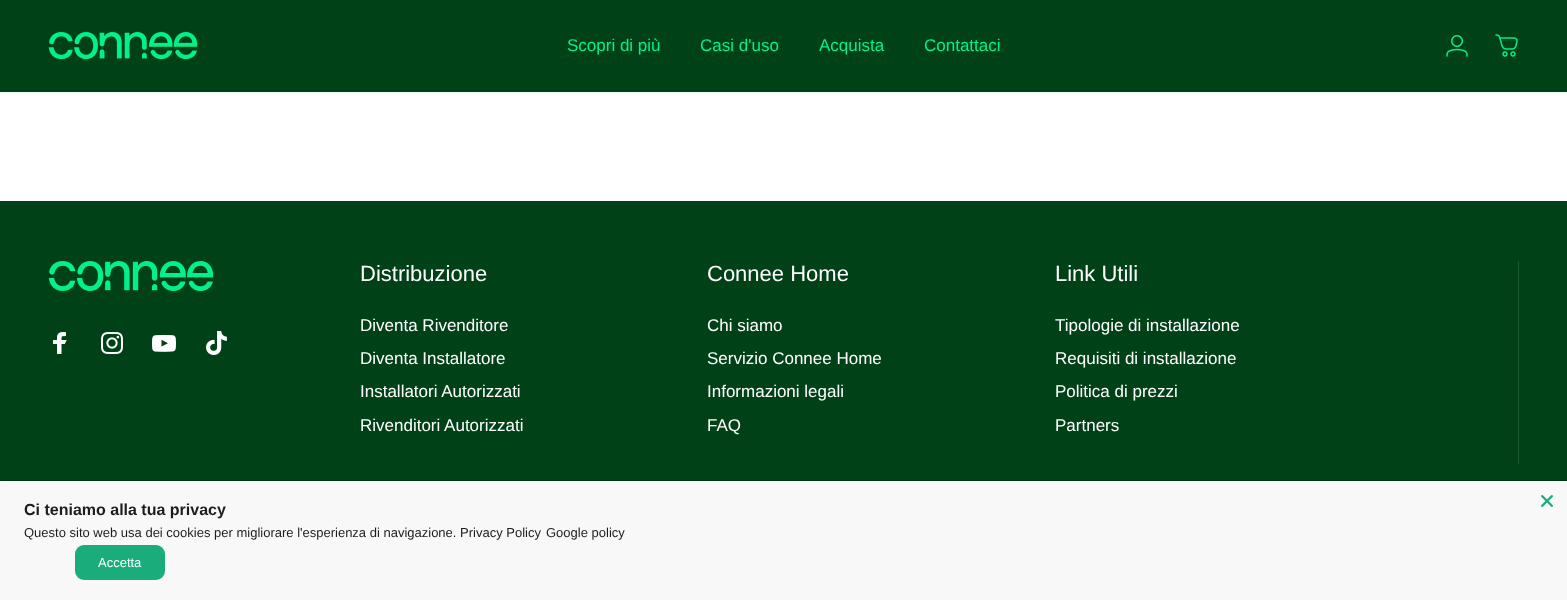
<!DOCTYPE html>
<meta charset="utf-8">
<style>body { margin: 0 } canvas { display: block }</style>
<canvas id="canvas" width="1567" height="600"></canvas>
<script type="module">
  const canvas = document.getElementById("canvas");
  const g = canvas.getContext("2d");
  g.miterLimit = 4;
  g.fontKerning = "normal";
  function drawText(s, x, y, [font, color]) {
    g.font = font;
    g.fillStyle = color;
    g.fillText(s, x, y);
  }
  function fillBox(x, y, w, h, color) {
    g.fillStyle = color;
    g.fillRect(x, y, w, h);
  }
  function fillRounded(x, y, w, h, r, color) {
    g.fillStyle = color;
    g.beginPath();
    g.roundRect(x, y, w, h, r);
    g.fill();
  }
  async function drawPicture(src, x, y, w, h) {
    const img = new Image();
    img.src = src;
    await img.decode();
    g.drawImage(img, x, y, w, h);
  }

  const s1 = ["17px Liberation Sans", "#00F08B"];
  const s2 = ["22px Liberation Sans", "#FFFFFF"];
  const s3 = ["17px Liberation Sans", "#FFFFFF"];
  const s4 = ["bold 16px Liberation Sans", "#1D1D1D"];
  const s5 = ["13px Liberation Sans", "#1D1D1D"];
  const s6 = ["13px Liberation Sans", "#FFFFFF"];

  fillBox(0, 0, 1567, 600, "#FFFFFF");
  fillBox(0, 0, 1567, 92, "#004118");
  await drawPicture("pic1.png", 48, 32, 150, 28);
  drawText("Scopri di più", 567, 51, s1);
  drawText("Casi d'uso", 700, 51, s1);
  drawText("Acquista", 819, 51, s1);
  drawText("Contattaci", 924, 51, s1);
  await drawPicture("pic2.png", 1446, 35, 22, 22);
  await drawPicture("pic3.png", 1495, 34, 23, 23);
  fillBox(0, 92, 1567, 1, "#E2FDF2");
  fillBox(0, 201, 1567, 280, "#004118");
  fillBox(1518, 261, 1, 203, "#1D5732");
  await drawPicture("pic4.png", 48, 261, 166, 30);
  await drawPicture("pic5.png", 53, 332, 14, 22);
  await drawPicture("pic6.png", 101, 332, 22, 22);
  await drawPicture("pic7.png", 152, 335, 24, 17);
  await drawPicture("pic8.png", 206, 331, 21, 24);
  drawText("Distribuzione", 360, 281, s2);
  drawText("Diventa Rivenditore", 360, 331, s3);
  drawText("Diventa Installatore", 360, 364, s3);
  drawText("Installatori Autorizzati", 360, 397, s3);
  drawText("Rivenditori Autorizzati", 360, 431, s3);
  drawText("Connee Home", 707, 281, s2);
  drawText("Chi siamo", 707, 331, s3);
  drawText("Servizio Connee Home", 707, 364, s3);
  drawText("Informazioni legali", 707, 397, s3);
  drawText("FAQ", 707, 431, s3);
  drawText("Link Utili", 1055, 281, s2);
  drawText("Tipologie di installazione", 1055, 331, s3);
  drawText("Requisiti di installazione", 1055, 364, s3);
  drawText("Politica di prezzi", 1055, 397, s3);
  drawText("Partners", 1055, 431, s3);
  g.fillStyle = "rgba(0, 0, 0, 0.5)";
  g.filter = "blur(1px)";
  g.beginPath();
  g.rect(0, 481, 1567, 119);
  g.fill();
  g.filter = "none";
  fillBox(0, 481, 1567, 119, "#F8F8F8");
  await drawPicture("pic9.png", 1541, 495, 12, 12);
  drawText("Ci teniamo alla tua privacy", 24, 515, s4);
  drawText("Questo sito web usa dei cookies per migliorare l'esperienza di navigazione. Privacy Policy", 24, 537, s5);
  drawText("Google policy", 546, 537, s5);
  fillRounded(75, 545, 90, 35, 9, "#1AAC7A");
  drawText("Accetta", 98, 567, s6);
</script>
